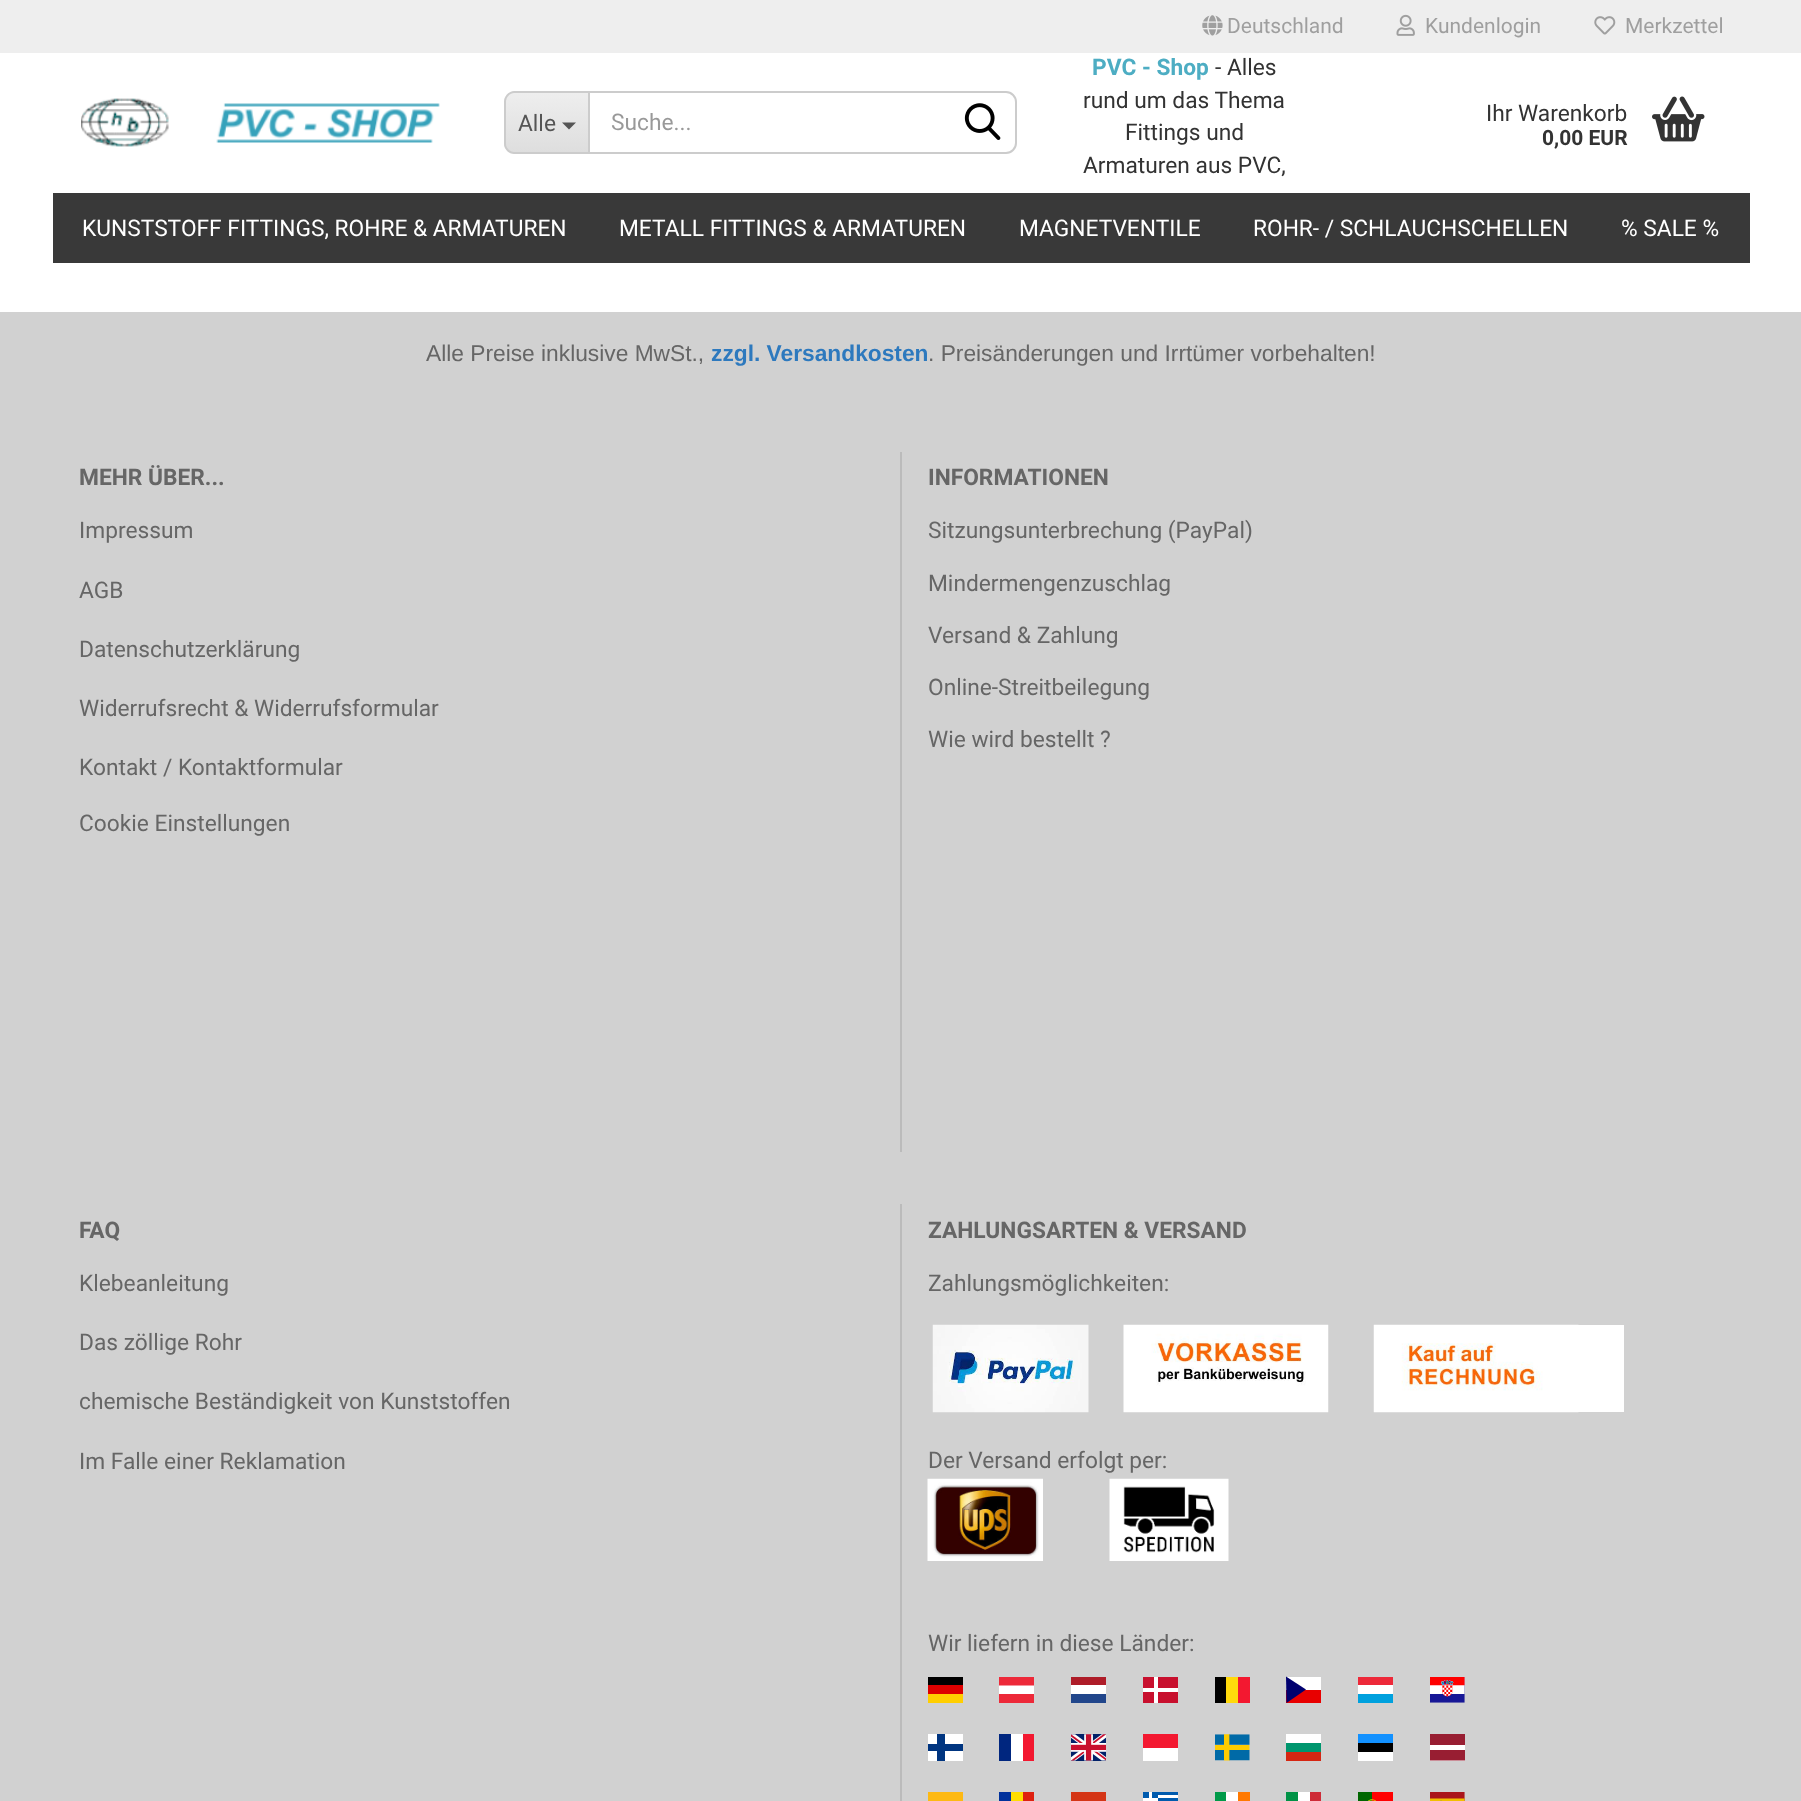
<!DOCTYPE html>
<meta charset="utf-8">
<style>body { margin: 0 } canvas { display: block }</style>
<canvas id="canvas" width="1801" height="1801"></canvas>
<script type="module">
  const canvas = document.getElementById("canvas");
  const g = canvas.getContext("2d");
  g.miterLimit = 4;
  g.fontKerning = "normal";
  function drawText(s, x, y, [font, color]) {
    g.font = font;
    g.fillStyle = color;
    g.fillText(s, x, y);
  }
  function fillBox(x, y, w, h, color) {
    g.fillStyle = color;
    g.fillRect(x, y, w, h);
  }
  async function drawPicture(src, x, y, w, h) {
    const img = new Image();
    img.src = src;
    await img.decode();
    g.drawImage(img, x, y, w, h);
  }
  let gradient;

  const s1 = ["21px Roboto", "#9F9F9F"];
  const s2 = ["22.75px Roboto", "#555555"];
  const s3 = ["22.75px Roboto", "#999999"];
  const s4 = ["bold 22.75px Roboto", "#4DADC3"];
  const s5 = ["22.75px Roboto", "#333333"];
  const s6 = ["bold 21px Roboto", "#333333"];
  const s7 = ["22.75px Roboto", "#FFFFFF"];
  const s8 = ["22.75px Liberation Sans", "#666666"];
  const s9 = ["bold 22.75px Liberation Sans", "#2D79BE"];
  const s10 = ["bold 22.75px Roboto", "#666666"];
  const s11 = ["22.75px Roboto", "#666666"];

  fillBox(0, 0, 1801, 1801, "#FFFFFF");
  fillBox(0, 0, 1801, 53, "#EEEEEE");
  await drawPicture("pic1.png", 1202, 15, 21, 21);
  drawText("Deutschland", 1227, 33, s1);
  await drawPicture("pic2.png", 1396, 14, 19, 22);
  drawText("Kundenlogin", 1425, 33, s1);
  await drawPicture("pic3.png", 1594, 16, 22, 19);
  drawText("Merkzettel", 1625, 33, s1);
  await drawPicture("pic4.png", 81, 98, 359, 49);
  g.save();
  g.beginPath();
  g.roundRect(504, 91, 84, 63, [11, 0, 0, 11]);
  g.clip();
  gradient = g.createLinearGradient(547, 93, 547, 152);
  gradient.addColorStop(0, "#EEEEEE");
  gradient.addColorStop(1, "#DEDEDE");
  g.fillStyle = gradient;
  g.fillRect(504, 93, 84, 59);
  g.restore();
  g.fillStyle = "#CCCCCC";
  g.beginPath();
  g.moveTo(514, 91);
  g.lineTo(588, 91);
  g.lineTo(588, 154);
  g.lineTo(514, 154);
  g.bezierCurveTo(509, 154, 504, 149, 504, 144);
  g.lineTo(504, 102);
  g.bezierCurveTo(504, 96, 509, 91, 514, 91);
  g.closePath();
  g.moveTo(514, 93);
  g.lineTo(588, 93);
  g.lineTo(588, 152);
  g.lineTo(514, 152);
  g.bezierCurveTo(510, 152, 506, 148, 506, 144);
  g.lineTo(506, 102);
  g.bezierCurveTo(506, 97, 510, 93, 514, 93);
  g.closePath();
  g.fill("evenodd");
  drawText("Alle", 518, 131, s2);
  g.beginPath();
  g.moveTo(562, 122.5);
  g.lineTo(576, 122.5);
  g.lineTo(569, 129.5);
  g.closePath();
  g.fill();
  g.beginPath();
  g.roundRect(589, 92, 427, 61, [0, 10, 10, 0]);
  g.strokeStyle = "#CCCCCC";
  g.lineWidth = 2;
  g.stroke();
  drawText("Suche...", 611, 130, s3);
  await drawPicture("pic5.png", 964, 103, 37, 37);
  drawText("PVC - Shop", 1092, 75, s4);
  drawText("- Alles", 1215, 75, s5);
  drawText("rund um das Thema", 1083, 108, s5);
  drawText("Fittings und", 1125, 140, s5);
  drawText("Armaturen aus PVC,", 1083, 173, s5);
  drawText("Ihr Warenkorb", 1486, 121, s5);
  drawText("0,00 EUR", 1542, 145, s6);
  await drawPicture("pic6.png", 1652, 96, 53, 46);
  fillBox(53, 193, 1697, 70, "#393939");
  drawText("KUNSTSTOFF FITTINGS, ROHRE & ARMATUREN", 82, 236, s7);
  drawText("METALL FITTINGS & ARMATUREN", 619, 236, s7);
  drawText("MAGNETVENTILE", 1019, 236, s7);
  drawText("ROHR- / SCHLAUCHSCHELLEN", 1253, 236, s7);
  drawText("% SALE %", 1621, 236, s7);
  fillBox(0, 312, 1801, 1489, "#D1D1D1");
  drawText("Alle Preise inklusive MwSt.,", 426, 361, s8);
  drawText("zzgl. Versandkosten", 711, 361, s9);
  drawText(". Preisänderungen und Irrtümer vorbehalten!", 928, 361, s8);
  fillBox(900, 452, 2, 700, "#BBBBBB");
  drawText("MEHR ÜBER...", 79, 485, s10);
  drawText("Impressum", 79, 538, s11);
  drawText("AGB", 79, 598, s11);
  drawText("Datenschutzerklärung", 79, 657, s11);
  drawText("Widerrufsrecht & Widerrufsformular", 79, 716, s11);
  drawText("Kontakt / Kontaktformular", 79, 775, s11);
  drawText("Cookie Einstellungen", 79, 831, s11);
  drawText("INFORMATIONEN", 928, 485, s10);
  drawText("Sitzungsunterbrechung (PayPal)", 928, 538, s11);
  drawText("Mindermengenzuschlag", 928, 591, s11);
  drawText("Versand & Zahlung", 928, 643, s11);
  drawText("Online-Streitbeilegung", 928, 695, s11);
  drawText("Wie wird bestellt ?", 928, 747, s11);
  fillBox(900, 1204, 2, 597, "#BBBBBB");
  drawText("FAQ", 79, 1238, s10);
  drawText("Klebeanleitung", 79, 1291, s11);
  drawText("Das zöllige Rohr", 79, 1350, s11);
  drawText("chemische Beständigkeit von Kunststoffen", 79, 1409, s11);
  drawText("Im Falle einer Reklamation", 79, 1469, s11);
  drawText("ZAHLUNGSARTEN & VERSAND", 928, 1238, s10);
  drawText("Zahlungsmöglichkeiten:", 928, 1291, s11);
  await drawPicture("pic7.png", 932, 1324, 157, 89);
  await drawPicture("pic8.png", 1123, 1324, 206, 89);
  fillBox(1578, 1325, 46, 87, "#FFFFFF");
  await drawPicture("pic9.png", 1373, 1324, 206, 89);
  drawText("Der Versand erfolgt per:", 928, 1468, s11);
  await drawPicture("pic10.png", 927, 1478, 116, 83);
  await drawPicture("pic11.png", 1109, 1478, 120, 83);
  drawText("Wir liefern in diese Länder:", 928, 1651, s11);
  fillBox(928, 1677, 35, 8, "#000000");
  fillBox(928, 1685, 35, 9, "#DD0000");
  fillBox(928, 1694, 35, 9, "#FFCE00");
  fillBox(999, 1685, 35, 9, "#FFFFFF");
  g.save();
  g.beginPath();
  g.rect(999, 1677, 35, 26);
  g.clip();
  g.fillStyle = "#ED2939";
  g.beginPath();
  g.moveTo(1034, 1703);
  g.lineTo(999, 1703);
  g.lineTo(999, 1694);
  g.lineTo(1034, 1694);
  g.closePath();
  g.moveTo(1034, 1685.5);
  g.lineTo(999, 1685.5);
  g.lineTo(999, 1676.5);
  g.lineTo(1034, 1676.5);
  g.closePath();
  g.fill("evenodd");
  g.restore();
  fillBox(1071, 1677, 35, 8, "#AE1C28");
  fillBox(1071, 1685, 35, 9, "#FFFFFF");
  fillBox(1071, 1694, 35, 9, "#21468B");
  fillBox(1143, 1677, 35, 26, "#C8102E");
  fillBox(1154, 1677, 4, 26, "#FFFFFF");
  fillBox(1143, 1688, 35, 4, "#FFFFFF");
  fillBox(1215, 1677, 11, 26, "#000000");
  fillBox(1226, 1677, 12, 26, "#FFD90C");
  fillBox(1238, 1677, 12, 26, "#F31830");
  fillBox(1286, 1677, 35, 13, "#FFFFFF");
  fillBox(1286, 1690, 35, 13, "#E80000");
  g.fillStyle = "#00006F";
  g.beginPath();
  g.moveTo(1286, 1676.5);
  g.lineTo(1306, 1689.5);
  g.lineTo(1286.5, 1703);
  g.closePath();
  g.fill();
  fillBox(1358, 1677, 35, 8, "#ED2939");
  fillBox(1358, 1685, 35, 9, "#FFFFFF");
  fillBox(1358, 1694, 35, 9, "#00A1DE");
  await drawPicture("pic12.png", 1430, 1677, 35, 26);
  fillBox(928, 1734, 35, 27, "#FFFFFF");
  fillBox(928, 1744, 35, 7, "#003580");
  fillBox(937, 1734, 8, 27, "#003580");
  fillBox(999, 1734, 12, 27, "#00267F");
  fillBox(1011, 1734, 12, 27, "#FFFFFF");
  fillBox(1023, 1734, 11, 27, "#F31830");
  await drawPicture("pic13.png", 1071, 1734, 35, 27);
  fillBox(1143, 1734, 35, 14, "#F31830");
  fillBox(1143, 1748, 35, 13, "#FFFFFF");
  await drawPicture("pic14.png", 1215, 1734, 35, 27);
  fillBox(1286, 1734, 35, 9, "#FFFFFF");
  fillBox(1286, 1743, 35, 9, "#00966E");
  fillBox(1286, 1752, 35, 9, "#D62612");
  fillBox(1358, 1734, 35, 9, "#1291FF");
  fillBox(1358, 1743, 35, 9, "#000000");
  fillBox(1358, 1752, 35, 9, "#FFFFFF");
  fillBox(1430, 1745, 35, 16, "#FFFFFF");
  g.fillStyle = "#981E32";
  g.beginPath();
  g.moveTo(1430, 1734);
  g.lineTo(1465, 1734);
  g.lineTo(1465, 1745);
  g.lineTo(1430, 1745);
  g.closePath();
  g.moveTo(1430, 1750);
  g.lineTo(1465, 1750);
  g.lineTo(1465, 1760.5);
  g.lineTo(1430, 1760.5);
  g.closePath();
  g.fill("evenodd");
  fillBox(928, 1792, 35, 9, "#FDB913");
  fillBox(999, 1792, 12, 9, "#00319C");
  fillBox(1011, 1792, 12, 9, "#FFDE00");
  fillBox(1023, 1792, 11, 9, "#DE2110");
  fillBox(1071, 1792, 35, 9, "#D43516");
  await drawPicture("pic15.png", 1143, 1792, 35, 9);
  fillBox(1215, 1792, 11, 9, "#009A49");
  fillBox(1226, 1792, 12, 9, "#FFFFFF");
  fillBox(1238, 1792, 12, 9, "#FF7900");
  fillBox(1286, 1792, 12, 9, "#009246");
  fillBox(1298, 1792, 12, 9, "#FFFFFF");
  fillBox(1310, 1792, 11, 9, "#CE2B37");
  await drawPicture("pic16.png", 1358, 1792, 35, 9);
  await drawPicture("pic17.png", 1430, 1792, 35, 9);
</script>
